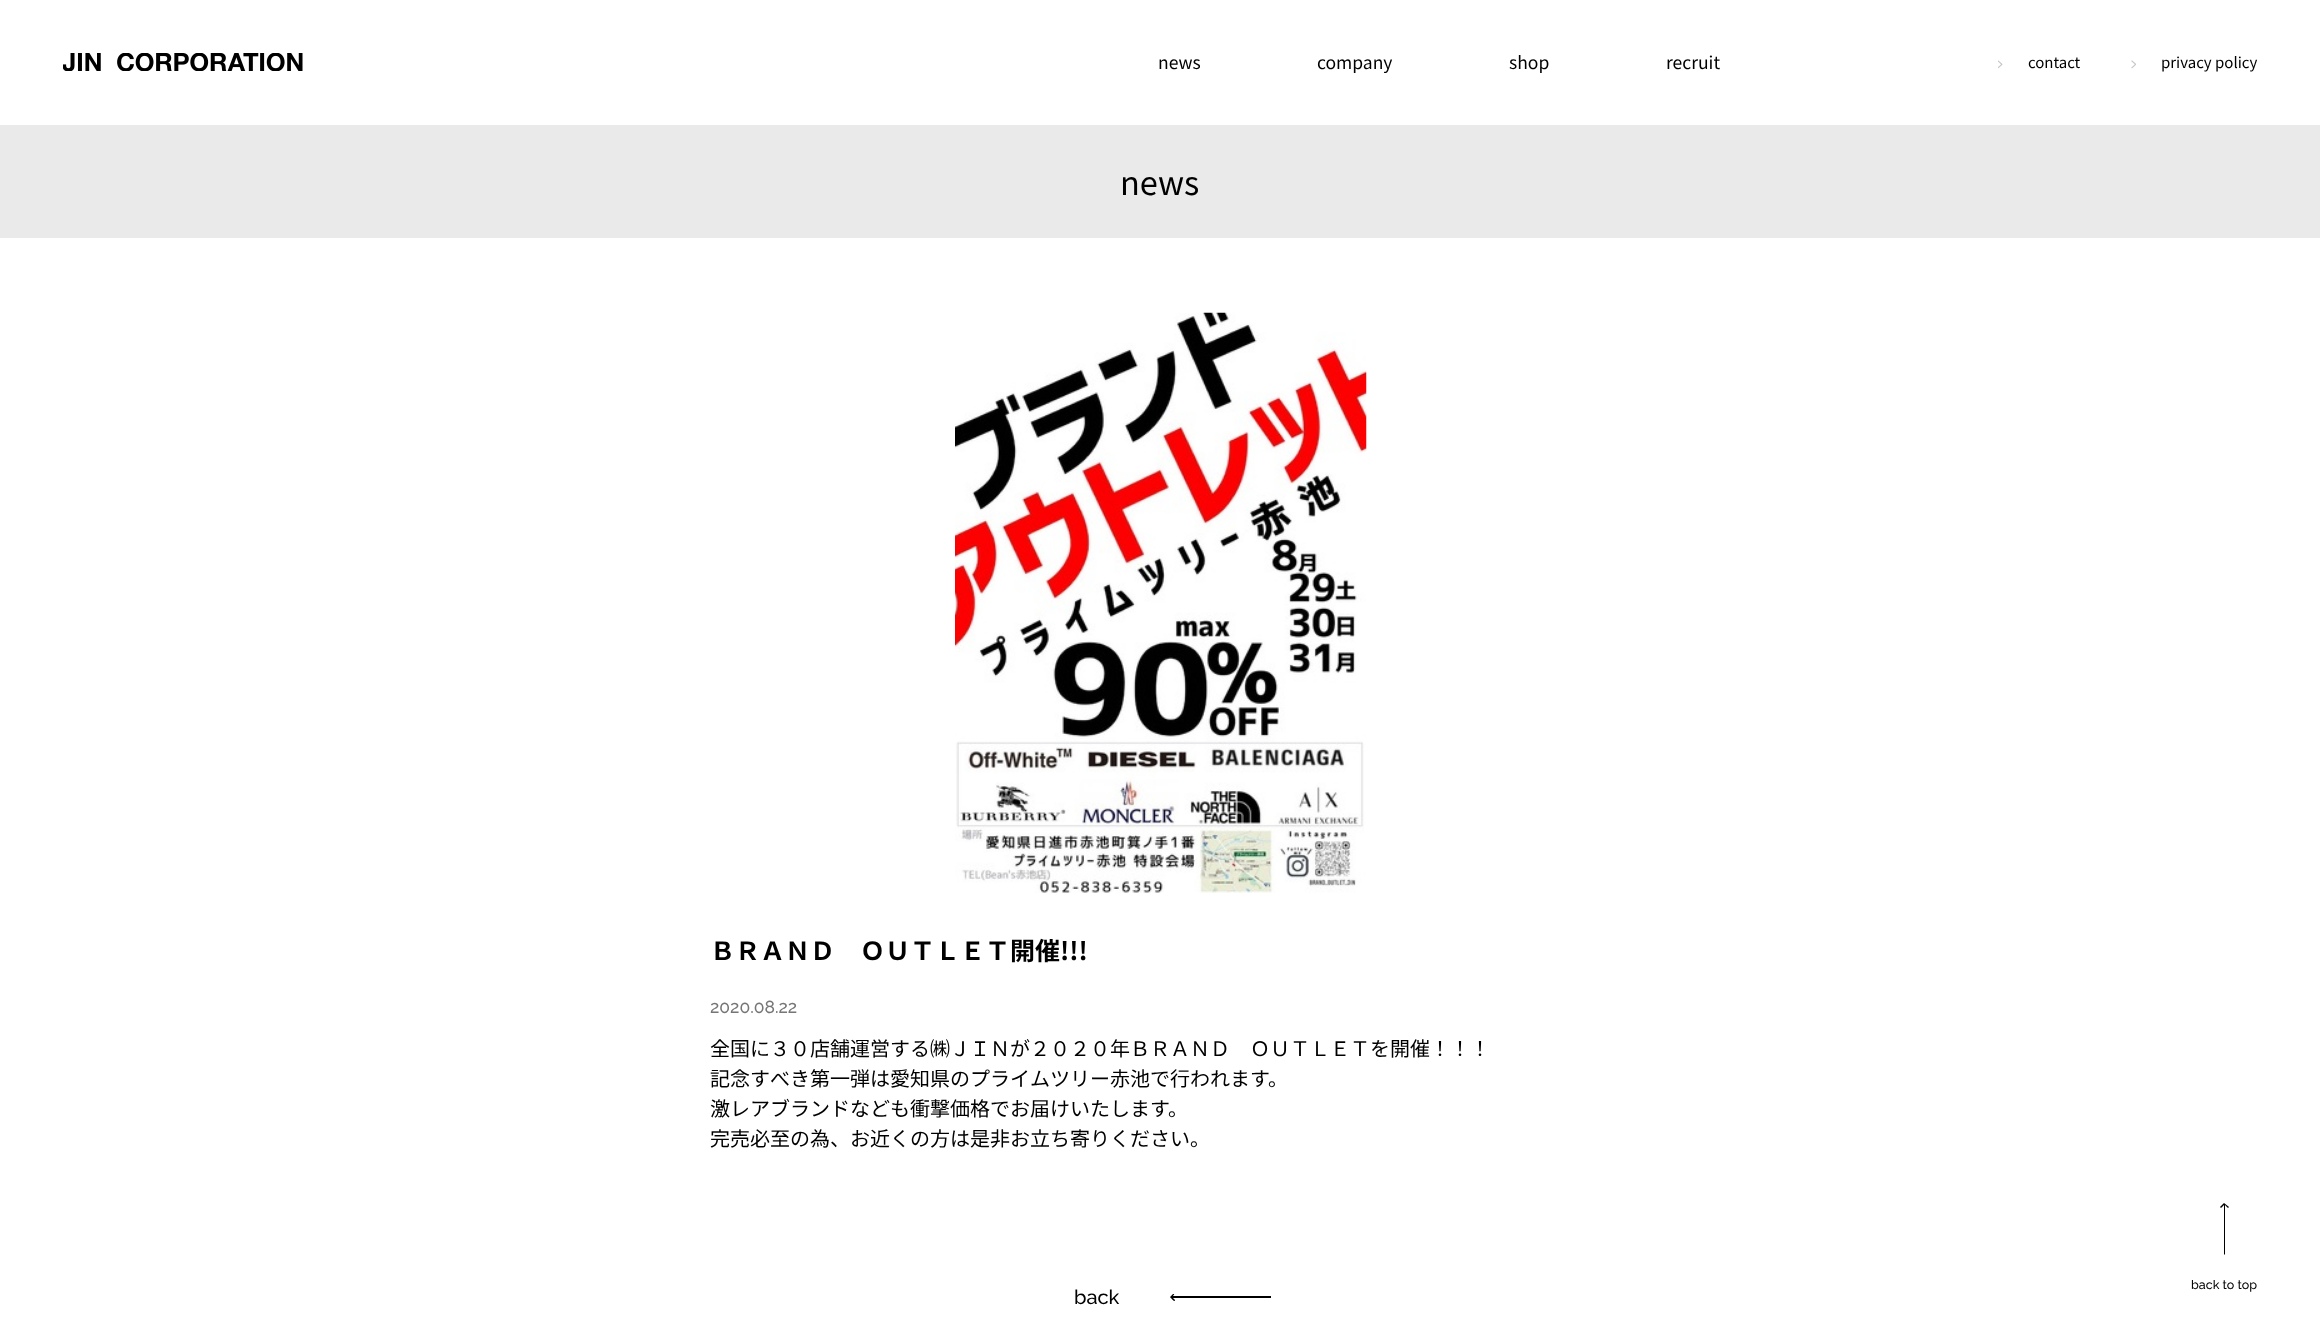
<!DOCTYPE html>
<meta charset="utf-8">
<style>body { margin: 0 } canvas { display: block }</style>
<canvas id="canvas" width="2320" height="1343"></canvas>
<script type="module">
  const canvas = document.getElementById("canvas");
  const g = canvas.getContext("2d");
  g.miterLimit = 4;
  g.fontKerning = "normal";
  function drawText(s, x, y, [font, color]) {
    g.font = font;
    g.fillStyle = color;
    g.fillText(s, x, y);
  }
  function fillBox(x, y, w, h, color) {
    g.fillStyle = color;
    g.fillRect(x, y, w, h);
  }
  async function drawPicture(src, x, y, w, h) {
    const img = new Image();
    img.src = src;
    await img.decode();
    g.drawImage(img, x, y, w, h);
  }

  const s1 = ["17.5px Noto Sans JP", "#000000"];
  const s2 = ["15px Noto Sans JP", "#000000"];
  const s3 = ["32.5px Noto Sans JP", "#000000"];
  const s4 = ["bold 25px Noto Sans JP", "#000000"];
  const s5 = ["100 17.5px Raleway", "#767676"];
  const s6 = ["20px Noto Sans JP", "#000000"];
  const s7 = ["100 20px Raleway", "#000000"];
  const s8 = ["100 12.5px Raleway", "#000000"];

  fillBox(0, 0, 2320, 1343, "#FFFFFF");
  await drawPicture("pic1.png", 63, 53, 240, 18);
  drawText("news", 1158, 69, s1);
  drawText("company", 1317, 69, s1);
  drawText("shop", 1509, 69, s1);
  drawText("recruit", 1666, 69, s1);
  await drawPicture("pic2.png", 1998, 60, 5, 9);
  drawText("contact", 2028, 68, s2);
  await drawPicture("pic3.png", 2131, 60, 5, 9);
  drawText("privacy policy", 2161, 68, s2);
  fillBox(0, 125, 2320, 113, "#EAEAEA");
  drawText("news", 1120, 195, s3);
  await drawPicture("pic4.png", 955, 312, 412, 581);
  drawText("ＢＲＡＮＤ　ＯＵＴＬＥＴ開催!!!", 710, 960, s4);
  drawText("2020.08.22", 710, 1013, s5);
  drawText("全国に３０店舗運営する㈱ＪＩＮが２０２０年ＢＲＡＮＤ　ＯＵＴＬＥＴを開催！！！", 710, 1056, s6);
  drawText("記念すべき第一弾は愛知県のプライムツリー赤池で行われます。", 710, 1086, s6);
  drawText("激レアブランドなども衝撃価格でお届けいたします。", 710, 1116, s6);
  drawText("完売必至の為、お近くの方は是非お立ち寄りください。", 710, 1146, s6);
  drawText("back", 1074, 1304, s7);
  g.save();
  g.beginPath();
  g.rect(1169, 1294, 102, 9);
  g.clip();
  g.beginPath();
  g.moveTo(1271, 1296);
  g.lineTo(1173, 1296);
  g.lineTo(1175, 1293);
  g.bezierCurveTo(1176, 1293, 1175, 1292, 1174, 1293);
  g.lineTo(1170, 1297);
  g.bezierCurveTo(1171, 1298, 1175, 1303, 1175, 1300);
  g.lineTo(1173, 1298);
  g.lineTo(1271, 1298);
  g.bezierCurveTo(1272, 1297, 1272, 1296, 1271, 1296);
  g.closePath();
  g.fill("evenodd");
  g.restore();
  g.beginPath();
  g.moveTo(2225, 1254);
  g.lineTo(2225, 1205);
  g.lineTo(2228, 1208);
  g.bezierCurveTo(2228, 1208, 2229, 1207, 2229, 1207);
  g.lineTo(2224, 1203);
  g.lineTo(2220, 1207);
  g.bezierCurveTo(2220, 1207, 2221, 1208, 2221, 1208);
  g.lineTo(2224, 1205);
  g.lineTo(2224, 1254);
  g.bezierCurveTo(2224, 1255, 2225, 1255, 2225, 1254);
  g.closePath();
  g.fill("evenodd");
  drawText("back to top", 2191, 1289, s8);
</script>
